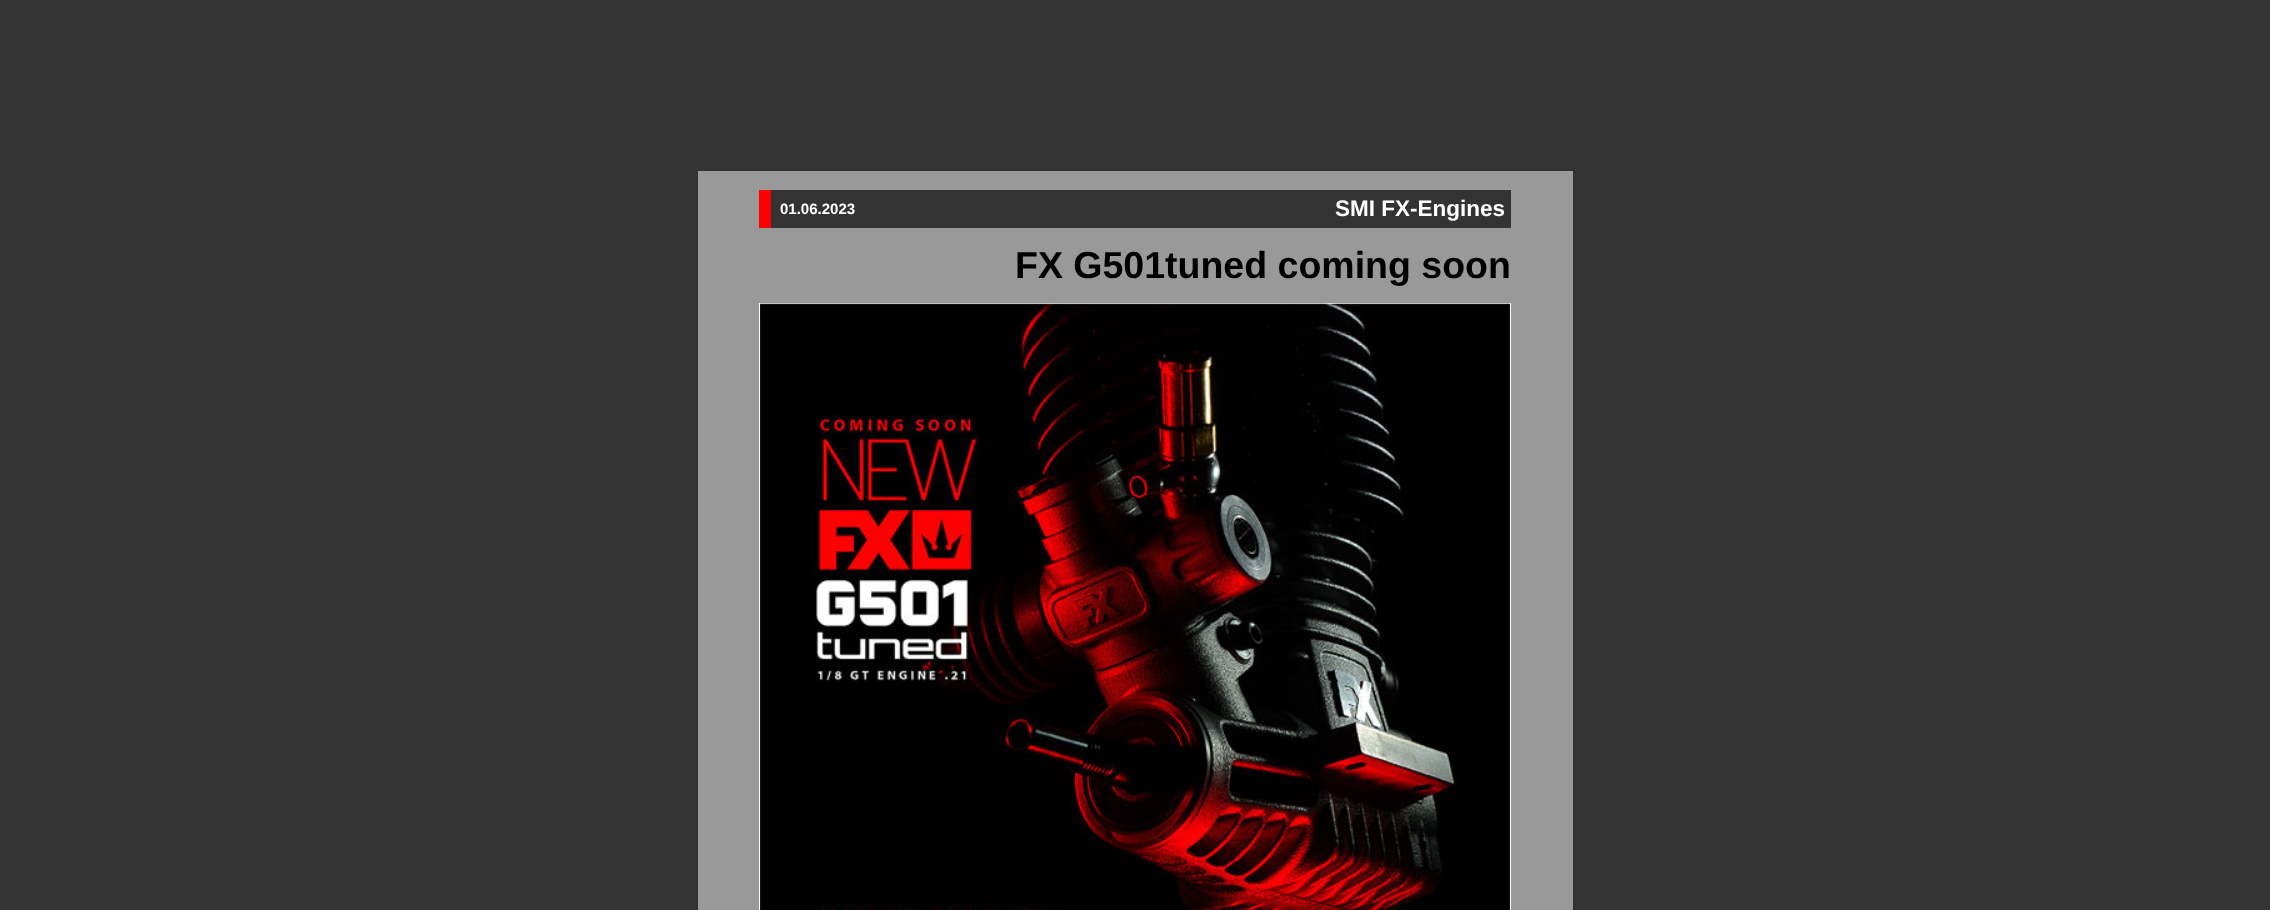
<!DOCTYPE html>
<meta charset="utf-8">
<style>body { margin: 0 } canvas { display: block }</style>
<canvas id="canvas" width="2270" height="910"></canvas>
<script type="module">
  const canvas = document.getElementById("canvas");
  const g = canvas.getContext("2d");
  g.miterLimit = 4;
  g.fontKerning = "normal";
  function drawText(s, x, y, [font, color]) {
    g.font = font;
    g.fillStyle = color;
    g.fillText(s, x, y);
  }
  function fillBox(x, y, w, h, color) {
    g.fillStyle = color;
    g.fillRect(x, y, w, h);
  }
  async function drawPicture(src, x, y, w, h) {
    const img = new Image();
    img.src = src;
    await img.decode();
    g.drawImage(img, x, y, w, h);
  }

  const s1 = ["bold 15px Liberation Sans", "#FFFFFF"];
  const s2 = ["bold 22.5px Liberation Sans", "#FFFFFF"];
  const s3 = ["bold 37.5px Liberation Sans", "#000000"];

  fillBox(0, 0, 2270, 910, "#333333");
  fillBox(698, 171, 875, 739, "#999999");
  fillBox(759, 190, 12, 38, "#FF0000");
  fillBox(771, 190, 740, 38, "#333333");
  drawText("01.06.2023", 780, 214, s1);
  drawText("SMI FX-Engines", 1335, 216, s2);
  drawText("FX G501tuned coming soon", 1015, 278, s3);
  g.strokeStyle = "#FFFFFF";
  g.strokeRect(759.5, 303.5, 751, 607);
  await drawPicture("pic1.png", 760, 303, 750, 607);
</script>
